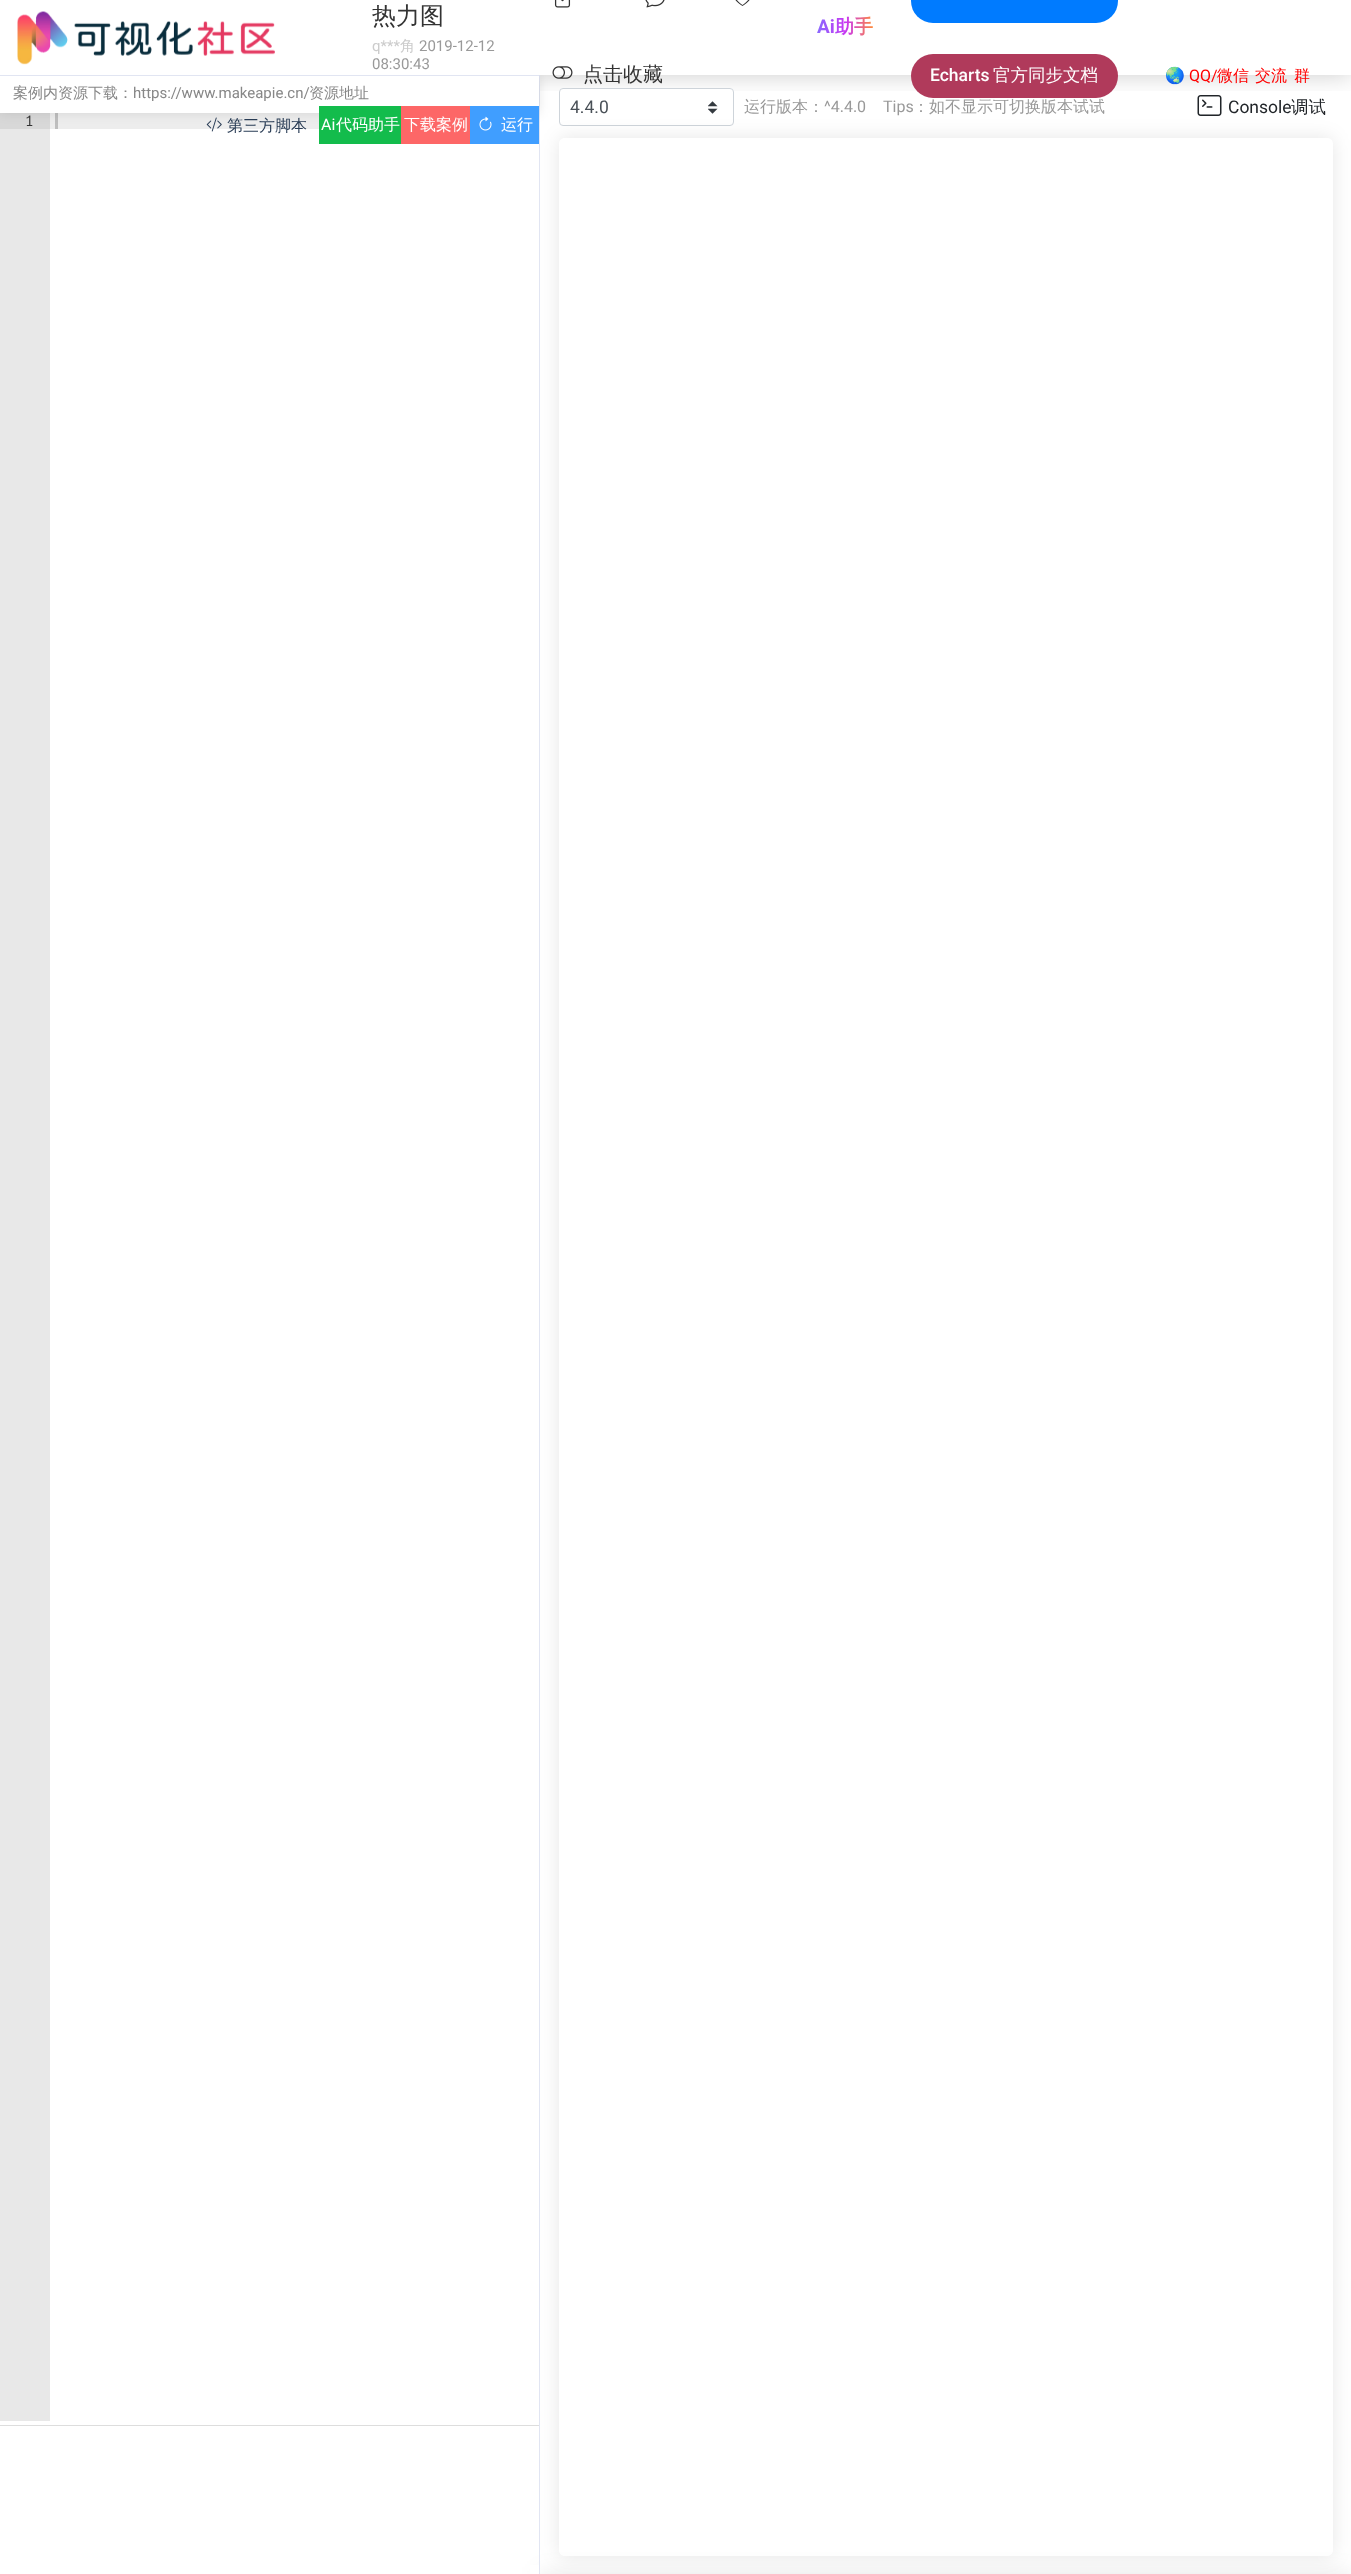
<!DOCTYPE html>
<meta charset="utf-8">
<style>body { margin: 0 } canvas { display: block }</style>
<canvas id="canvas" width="1351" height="2574"></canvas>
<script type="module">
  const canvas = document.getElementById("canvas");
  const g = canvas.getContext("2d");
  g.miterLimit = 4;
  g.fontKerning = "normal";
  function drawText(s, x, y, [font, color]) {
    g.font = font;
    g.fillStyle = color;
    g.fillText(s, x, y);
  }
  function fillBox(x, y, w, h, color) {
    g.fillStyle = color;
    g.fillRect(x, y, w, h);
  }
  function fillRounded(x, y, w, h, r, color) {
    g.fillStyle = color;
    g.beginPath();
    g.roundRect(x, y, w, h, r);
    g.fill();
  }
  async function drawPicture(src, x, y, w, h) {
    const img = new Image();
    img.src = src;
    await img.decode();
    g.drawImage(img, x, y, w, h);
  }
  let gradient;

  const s1 = ["500 24px WenQuanYi Zen Hei", "#333333"];
  const s2 = ["15px Roboto", "#CCCCCC"];
  const s3 = ["500 15px WenQuanYi Zen Hei", "#CCCCCC"];
  const s4 = ["15px Roboto", "#999999"];
  const s5 = ["500 20px WenQuanYi Zen Hei", "#333333"];
  const s6 = ["500 17.5px Roboto", "#FFFFFF"];
  const s7 = ["500 17.5px WenQuanYi Zen Hei", "#FFFFFF"];
  const s8 = ["16px Noto Color Emoji", "#FF0000"];
  const s9 = ["16px Roboto", "#FF0000"];
  const s10 = ["500 16px WenQuanYi Zen Hei", "#FF0000"];
  const s11 = ["500 15px WenQuanYi Zen Hei", "#878787"];
  const s12 = ["15px Roboto", "#878787"];
  const s13 = ["500 16px WenQuanYi Zen Hei", "#293C55"];
  const s14 = ["16px Roboto", "#FFFFFF"];
  const s15 = ["500 16px WenQuanYi Zen Hei", "#FFFFFF"];
  const s16 = ["15px Ubuntu Mono", "#333333"];
  const s17 = ["17.5px Roboto", "#495057"];
  const s18 = ["500 16px WenQuanYi Zen Hei", "#999999"];
  const s19 = ["16px Roboto", "#999999"];
  const s20 = ["17.5px Roboto", "#212529"];
  const s21 = ["500 17.5px WenQuanYi Zen Hei", "#212529"];

  fillBox(0, 0, 1351, 2574, "#FFFFFF");
  g.save();
  g.beginPath();
  g.rect(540, 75, 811, 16);
  g.clip();
  g.fillStyle = "rgba(0, 0, 0, 0.2)";
  g.filter = "blur(12.5px)";
  g.beginPath();
  g.rect(0, 0, 1351, 75);
  g.fill();
  g.filter = "none";
  g.restore();
  await drawPicture("pic1.png", 17, 11, 258, 54);
  drawText("热力图", 372, 24, s1);
  drawText("q***", 372, 51, s2);
  drawText("角", 400, 51, s3);
  drawText("2019-12-12", 419, 51, s4);
  drawText("08:30:43", 372, 69, s4);
  g.font = "bold 19px Roboto";
  gradient = g.createLinearGradient(817, 0, 873, 0);
  gradient.addColorStop(0, "#8A69FF");
  gradient.addColorStop(0.52, "#C936F2");
  gradient.addColorStop(1, "#FF8A39");
  g.fillStyle = gradient;
  g.fillText("Ai", 817, 33);
  g.font = "bold 19px WenQuanYi Zen Hei";
  g.fillText("助手", 835, 33);
  await drawPicture("pic2.png", 554, 0, 17, 8);
  await drawPicture("pic3.png", 645, 0, 20, 8);
  g.fillStyle = "#333333";
  g.beginPath();
  g.moveTo(742.5, -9);
  g.bezierCurveTo(736.5, -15.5, 726.5, -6.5, 742.5, 5);
  g.bezierCurveTo(758.5, -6.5, 748.5, -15.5, 742.5, -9);
  g.closePath();
  g.moveTo(742.5, 6);
  g.bezierCurveTo(722.5, -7, 738, -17, 742.5, -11);
  g.bezierCurveTo(747, -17, 762.5, -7, 742.5, 6);
  g.closePath();
  g.fill();
  await drawPicture("pic4.png", 552, 66, 21, 13);
  drawText("点击收藏", 583, 81, s5);
  fillRounded(911, -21, 207, 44, 22, "#007BFF");
  fillRounded(911, 54, 207, 44, 22, "#B03A5B");
  drawText("Echarts", 930, 81, s6);
  drawText("官方同步文档", 993, 81, s7);
  drawText("🌏", 1165, 81, s8);
  drawText("QQ/", 1189, 81, s9);
  drawText("微信", 1217, 81, s10);
  drawText("交流", 1255, 81, s10);
  drawText("群", 1294, 81, s10);
  fillRounded(559, 88, 175, 38, 4, "#FFFFFF");
  await drawPicture("pic7.png", 708, 101, 10, 13);
  g.beginPath();
  g.roundRect(559.5, 88.5, 174, 37, 3.5);
  g.strokeStyle = "#CED4DA";
  g.stroke();
  await drawPicture("pic8.png", 1197, 95, 25, 21);
  g.save();
  g.beginPath();
  g.moveTo(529, 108);
  g.lineTo(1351, 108);
  g.lineTo(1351, 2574);
  g.lineTo(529, 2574);
  g.closePath();
  g.moveTo(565, 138);
  g.lineTo(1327, 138);
  g.bezierCurveTo(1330.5, 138, 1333, 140.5, 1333, 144);
  g.lineTo(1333, 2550);
  g.bezierCurveTo(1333, 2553.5, 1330.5, 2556, 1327, 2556);
  g.lineTo(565, 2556);
  g.bezierCurveTo(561.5, 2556, 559, 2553.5, 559, 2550);
  g.lineTo(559, 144);
  g.bezierCurveTo(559, 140.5, 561.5, 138, 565, 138);
  g.closePath();
  g.clip("evenodd");
  g.fillStyle = "rgba(0, 0, 0, 0.1)";
  g.filter = "blur(9.5px)";
  g.beginPath();
  g.roundRect(559, 138, 774, 2418, 6);
  g.fill();
  g.filter = "none";
  g.restore();
  g.fillStyle = "rgba(0, 0, 0, 0.1)";
  g.filter = "blur(12.5px)";
  g.beginPath();
  g.rect(540, 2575, 811, 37);
  g.fill();
  g.filter = "none";
  fillBox(539, 75, 1, 2499, "#E1E5F2");
  fillBox(0, 129, 50, 2292, "#E8E8E8");
  fillBox(0, 113, 50, 16, "#D8D8D8");
  fillBox(50, 113, 269, 16, "#EDEDED");
  fillBox(55, 113, 3, 16, "#BEBEBE");
  g.save();
  g.beginPath();
  g.rect(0, 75, 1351, 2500);
  g.clip();
  g.fillStyle = "rgba(0, 0, 0, 0.1)";
  g.filter = "blur(6px)";
  g.beginPath();
  g.rect(0, 75, 539, 38);
  g.fill();
  g.filter = "none";
  g.restore();
  fillBox(0, 76, 539, 37, "#FFFFFF");
  fillBox(0, 75, 539, 1, "#E1E5F2");
  drawText("案例内资源下载：", 13, 98, s11);
  drawText("https://www.makeapie.cn/", 133, 98, s12);
  drawText("资源地址", 309, 98, s11);
  await drawPicture("pic5.png", 206, 117, 16, 15);
  drawText("第三方脚本", 227, 131, s13);
  fillBox(319, 106, 82, 38, "#13BC4C");
  drawText("Ai", 321, 130, s14);
  drawText("代码助手", 336, 130, s15);
  fillBox(401, 106, 69, 38, "#FD6767");
  drawText("下载案例", 404, 130, s15);
  fillBox(470, 106, 69, 38, "#409EFF");
  await drawPicture("pic6.png", 479, 116, 13, 15);
  drawText("运行", 501, 130, s15);
  drawText("1", 25, 126, s16);
  fillBox(530, 2565, 9, 9, "#FFFFFF");
  fillBox(0, 2425, 539, 1, "#DDDDDD");
  drawText("4.4.0", 570, 113, s17);
  drawText("运行版本：", 744, 112, s18);
  drawText("^4.4.0", 824, 112, s19);
  drawText("Tips", 883, 112, s19);
  drawText("：如不显示可切换版本试试", 913, 112, s18);
  drawText("Console", 1228, 113, s20);
  drawText("调试", 1291, 113, s21);
</script>
